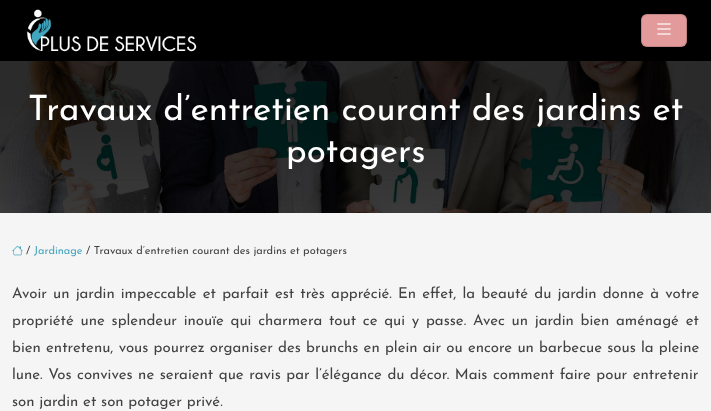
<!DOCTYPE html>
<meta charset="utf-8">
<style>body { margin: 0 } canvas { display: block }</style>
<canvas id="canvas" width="711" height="411"></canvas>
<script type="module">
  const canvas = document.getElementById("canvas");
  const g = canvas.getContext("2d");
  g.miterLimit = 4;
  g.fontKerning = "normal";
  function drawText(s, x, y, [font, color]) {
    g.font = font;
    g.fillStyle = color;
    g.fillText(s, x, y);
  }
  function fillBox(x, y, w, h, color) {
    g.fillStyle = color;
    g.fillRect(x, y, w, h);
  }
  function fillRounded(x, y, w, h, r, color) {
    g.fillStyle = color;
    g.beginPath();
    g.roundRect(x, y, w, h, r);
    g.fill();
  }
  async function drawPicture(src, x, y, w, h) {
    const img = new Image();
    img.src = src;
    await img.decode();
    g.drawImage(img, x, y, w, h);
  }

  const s1 = ["100 35px Josefin Sans", "#FFFFFF"];
  const s2 = ["100 11px Josefin Sans", "#424242"];
  const s3 = ["100 11px Josefin Sans", "#46A6C1"];
  const s4 = ["100 15px Josefin Sans", "#424242"];

  fillBox(0, 0, 711, 411, "#F5F5F5");
  fillBox(0, 0, 711, 61, "#000000");
  await drawPicture("pic1.png", 26, 9, 171, 43);
  fillRounded(641, 14, 46, 33, 6, "#E29A9A");
  g.beginPath();
  g.roundRect(641.5, 14.5, 45, 32, 5.5);
  g.strokeStyle = "rgba(0, 0, 0, 0.15)";
  g.stroke();
  await drawPicture("pic2.png", 657, 23, 14, 12);
  await drawPicture("pic3.png", 0, 61, 711, 152);
  drawText("Travaux d’entretien courant des jardins et", 28, 120, s1);
  drawText("potagers", 286, 162, s1);
  await drawPicture("pic4.png", 12, 245, 11, 11);
  drawText("/", 26, 254, s2);
  drawText("Jardinage", 34, 254, s3);
  drawText("/ Travaux d’entretien courant des jardins et potagers", 86, 254, s2);
  g.wordSpacing = "1.4px";
  drawText("Avoir un jardin impeccable et parfait est très apprécié. En effet, la beauté du jardin donne à votre", 12, 298, s4);
  g.wordSpacing = "2px";
  drawText("propriété une splendeur inouïe qui charmera tout ce qui y passe. Avec un jardin bien aménagé et", 12, 325, s4);
  g.wordSpacing = "0.5px";
  drawText("bien entretenu, vous pourrez organiser des brunchs en plein air ou encore un barbecue sous la pleine", 12, 352, s4);
  g.wordSpacing = "0.8px";
  drawText("lune. Vos convives ne seraient que ravis par l’élégance du décor. Mais comment faire pour entretenir", 12, 379, s4);
  g.wordSpacing = "0px";
  drawText("son jardin et son potager privé.", 12, 406, s4);
</script>
